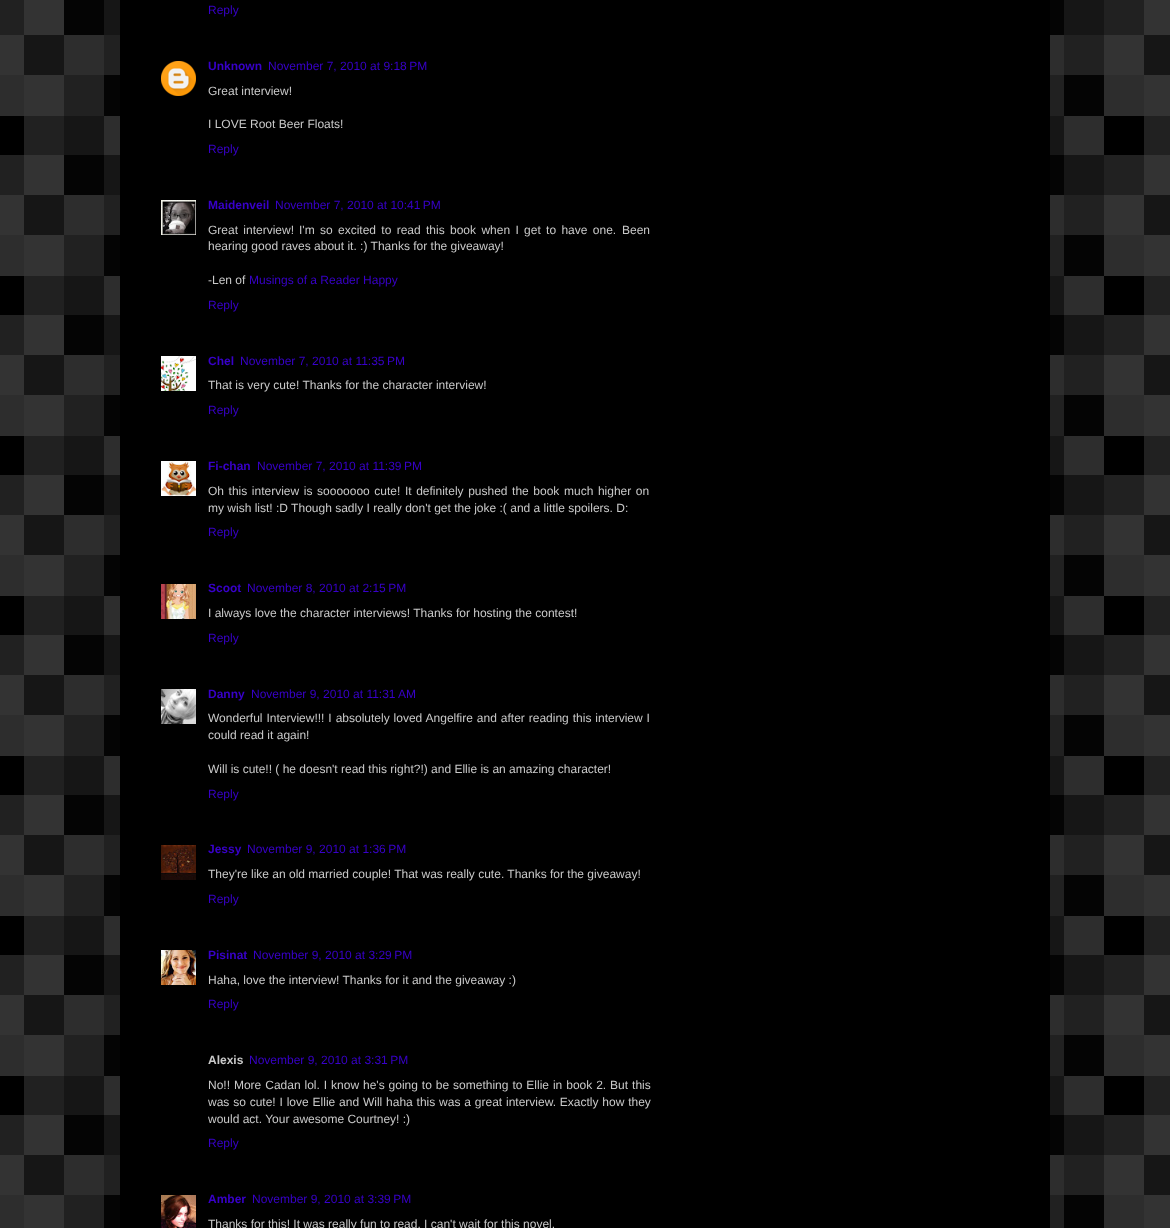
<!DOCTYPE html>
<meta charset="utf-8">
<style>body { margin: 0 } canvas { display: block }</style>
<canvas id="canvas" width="1170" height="1228"></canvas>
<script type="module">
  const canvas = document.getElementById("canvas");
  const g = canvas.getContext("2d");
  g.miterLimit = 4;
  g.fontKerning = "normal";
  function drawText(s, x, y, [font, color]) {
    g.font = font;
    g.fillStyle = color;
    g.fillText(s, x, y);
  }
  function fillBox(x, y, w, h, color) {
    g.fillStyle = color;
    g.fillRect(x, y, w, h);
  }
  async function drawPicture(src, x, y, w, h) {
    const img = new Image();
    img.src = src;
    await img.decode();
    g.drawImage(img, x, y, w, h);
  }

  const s1 = ["12px Liberation Sans", "#3800CA"];
  const s2 = ["bold 12px Liberation Sans", "#3800CA"];
  const s3 = ["12px Liberation Sans", "#C9C9C9"];
  const s4 = ["bold 12px Liberation Sans", "#C9C9C9"];

  fillBox(0, 0, 1170, 1228, "#000000");
  await drawPicture("pic1.png", 0, 0, 1170, 1228);
  fillBox(120, 0, 930, 1228, "#000000");
  drawText("Reply", 208, 14, s1);
  await drawPicture("pic2.png", 161, 61, 35, 35);
  drawText("Unknown", 208, 70, s2);
  drawText("November 7, 2010 at 9:18 PM", 268, 70, s1);
  drawText("Great interview!", 208, 95, s3);
  drawText("I LOVE Root Beer Floats!", 208, 128, s3);
  drawText("Reply", 208, 153, s1);
  await drawPicture("pic3.png", 161, 200, 35, 35);
  drawText("Maidenveil", 208, 209, s2);
  drawText("November 7, 2010 at 10:41 PM", 275, 209, s1);
  g.wordSpacing = "2px";
  drawText("Great interview!", 208, 234, s3);
  drawText("I'm so excited to read this book when I get to have one.", 299, 234, s3);
  g.wordSpacing = "0px";
  drawText("Been", 622, 234, s3);
  drawText("hearing good raves about it. :) Thanks for the giveaway!", 208, 250, s3);
  drawText("-Len of", 208, 284, s3);
  drawText("Musings of a Reader Happy", 249, 284, s1);
  drawText("Reply", 208, 309, s1);
  await drawPicture("pic4.png", 161, 356, 35, 35);
  drawText("Chel", 208, 365, s2);
  drawText("November 7, 2010 at 11:35 PM", 240, 365, s1);
  drawText("That is very cute! Thanks for the character interview!", 208, 389, s3);
  drawText("Reply", 208, 414, s1);
  await drawPicture("pic5.png", 161, 461, 35, 35);
  drawText("Fi-chan", 208, 470, s2);
  drawText("November 7, 2010 at 11:39 PM", 257, 470, s1);
  g.wordSpacing = "1.25px";
  drawText("Oh this interview is sooooooo cute! It definitely pushed the book much higher on", 208, 495, s3);
  g.wordSpacing = "0px";
  drawText("my wish list! :D Though sadly I really don't get the joke :( and a little spoilers. D:", 208, 512, s3);
  drawText("Reply", 208, 536, s1);
  await drawPicture("pic6.png", 161, 584, 35, 35);
  drawText("Scoot", 208, 592, s2);
  drawText("November 8, 2010 at 2:15 PM", 247, 592, s1);
  drawText("I always love the character interviews! Thanks for hosting the contest!", 208, 617, s3);
  drawText("Reply", 208, 642, s1);
  await drawPicture("pic7.png", 161, 689, 35, 35);
  drawText("Danny", 208, 698, s2);
  drawText("November 9, 2010 at 11:31 AM", 251, 698, s1);
  g.wordSpacing = "0.6px";
  drawText("Wonderful Interview!!! I absolutely loved Angelfire and after reading this interview I", 208, 722, s3);
  g.wordSpacing = "0px";
  drawText("could read it again!", 208, 739, s3);
  drawText("Will is cute!! ( he doesn't read this right?!) and Ellie is an amazing character!", 208, 773, s3);
  drawText("Reply", 208, 798, s1);
  await drawPicture("pic8.png", 161, 845, 35, 35);
  drawText("Jessy", 208, 853, s2);
  drawText("November 9, 2010 at 1:36 PM", 247, 853, s1);
  drawText("They're like an old married couple! That was really cute. Thanks for the giveaway!", 208, 878, s3);
  drawText("Reply", 208, 903, s1);
  await drawPicture("pic9.png", 161, 950, 35, 35);
  drawText("Pisinat", 208, 959, s2);
  drawText("November 9, 2010 at 3:29 PM", 253, 959, s1);
  drawText("Haha, love the interview! Thanks for it and the giveaway :)", 208, 984, s3);
  drawText("Reply", 208, 1008, s1);
  drawText("Alexis", 208, 1064, s4);
  drawText("November 9, 2010 at 3:31 PM", 249, 1064, s1);
  g.wordSpacing = "0.6px";
  drawText("No!! More Cadan lol. I know he's going to be something to Ellie in book 2. But this", 208, 1089, s3);
  g.wordSpacing = "0.5px";
  drawText("was so cute! I love Ellie and Will haha this was a great interview. Exactly how they", 208, 1106, s3);
  g.wordSpacing = "0px";
  drawText("would act. Your awesome Courtney! :)", 208, 1123, s3);
  drawText("Reply", 208, 1147, s1);
  await drawPicture("pic10.png", 161, 1195, 35, 33);
  drawText("Amber", 208, 1203, s2);
  drawText("November 9, 2010 at 3:39 PM", 252, 1203, s1);
  drawText("Thanks for this! It was really fun to read. I can't wait for this novel.", 208, 1228, s3);
</script>
